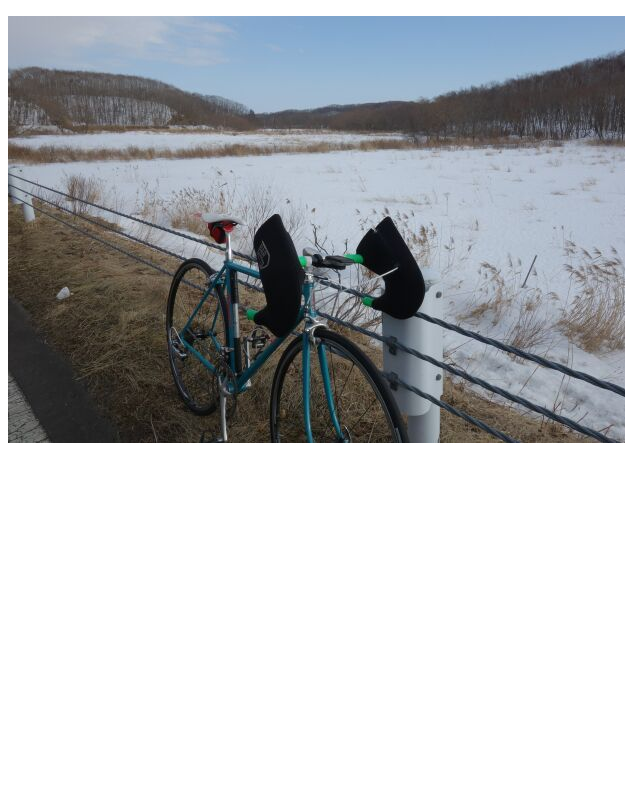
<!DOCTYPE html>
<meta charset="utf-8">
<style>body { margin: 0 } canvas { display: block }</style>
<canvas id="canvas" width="625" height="810"></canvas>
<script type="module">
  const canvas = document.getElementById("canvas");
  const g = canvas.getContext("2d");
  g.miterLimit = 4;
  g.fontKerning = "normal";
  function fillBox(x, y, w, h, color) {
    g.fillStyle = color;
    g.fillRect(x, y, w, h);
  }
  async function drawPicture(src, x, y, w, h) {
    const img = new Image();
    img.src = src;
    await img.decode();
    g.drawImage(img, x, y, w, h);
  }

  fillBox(0, 0, 625, 810, "#FFFFFF");
  await drawPicture("pic1.png", 8, 16, 617, 427);
</script>
